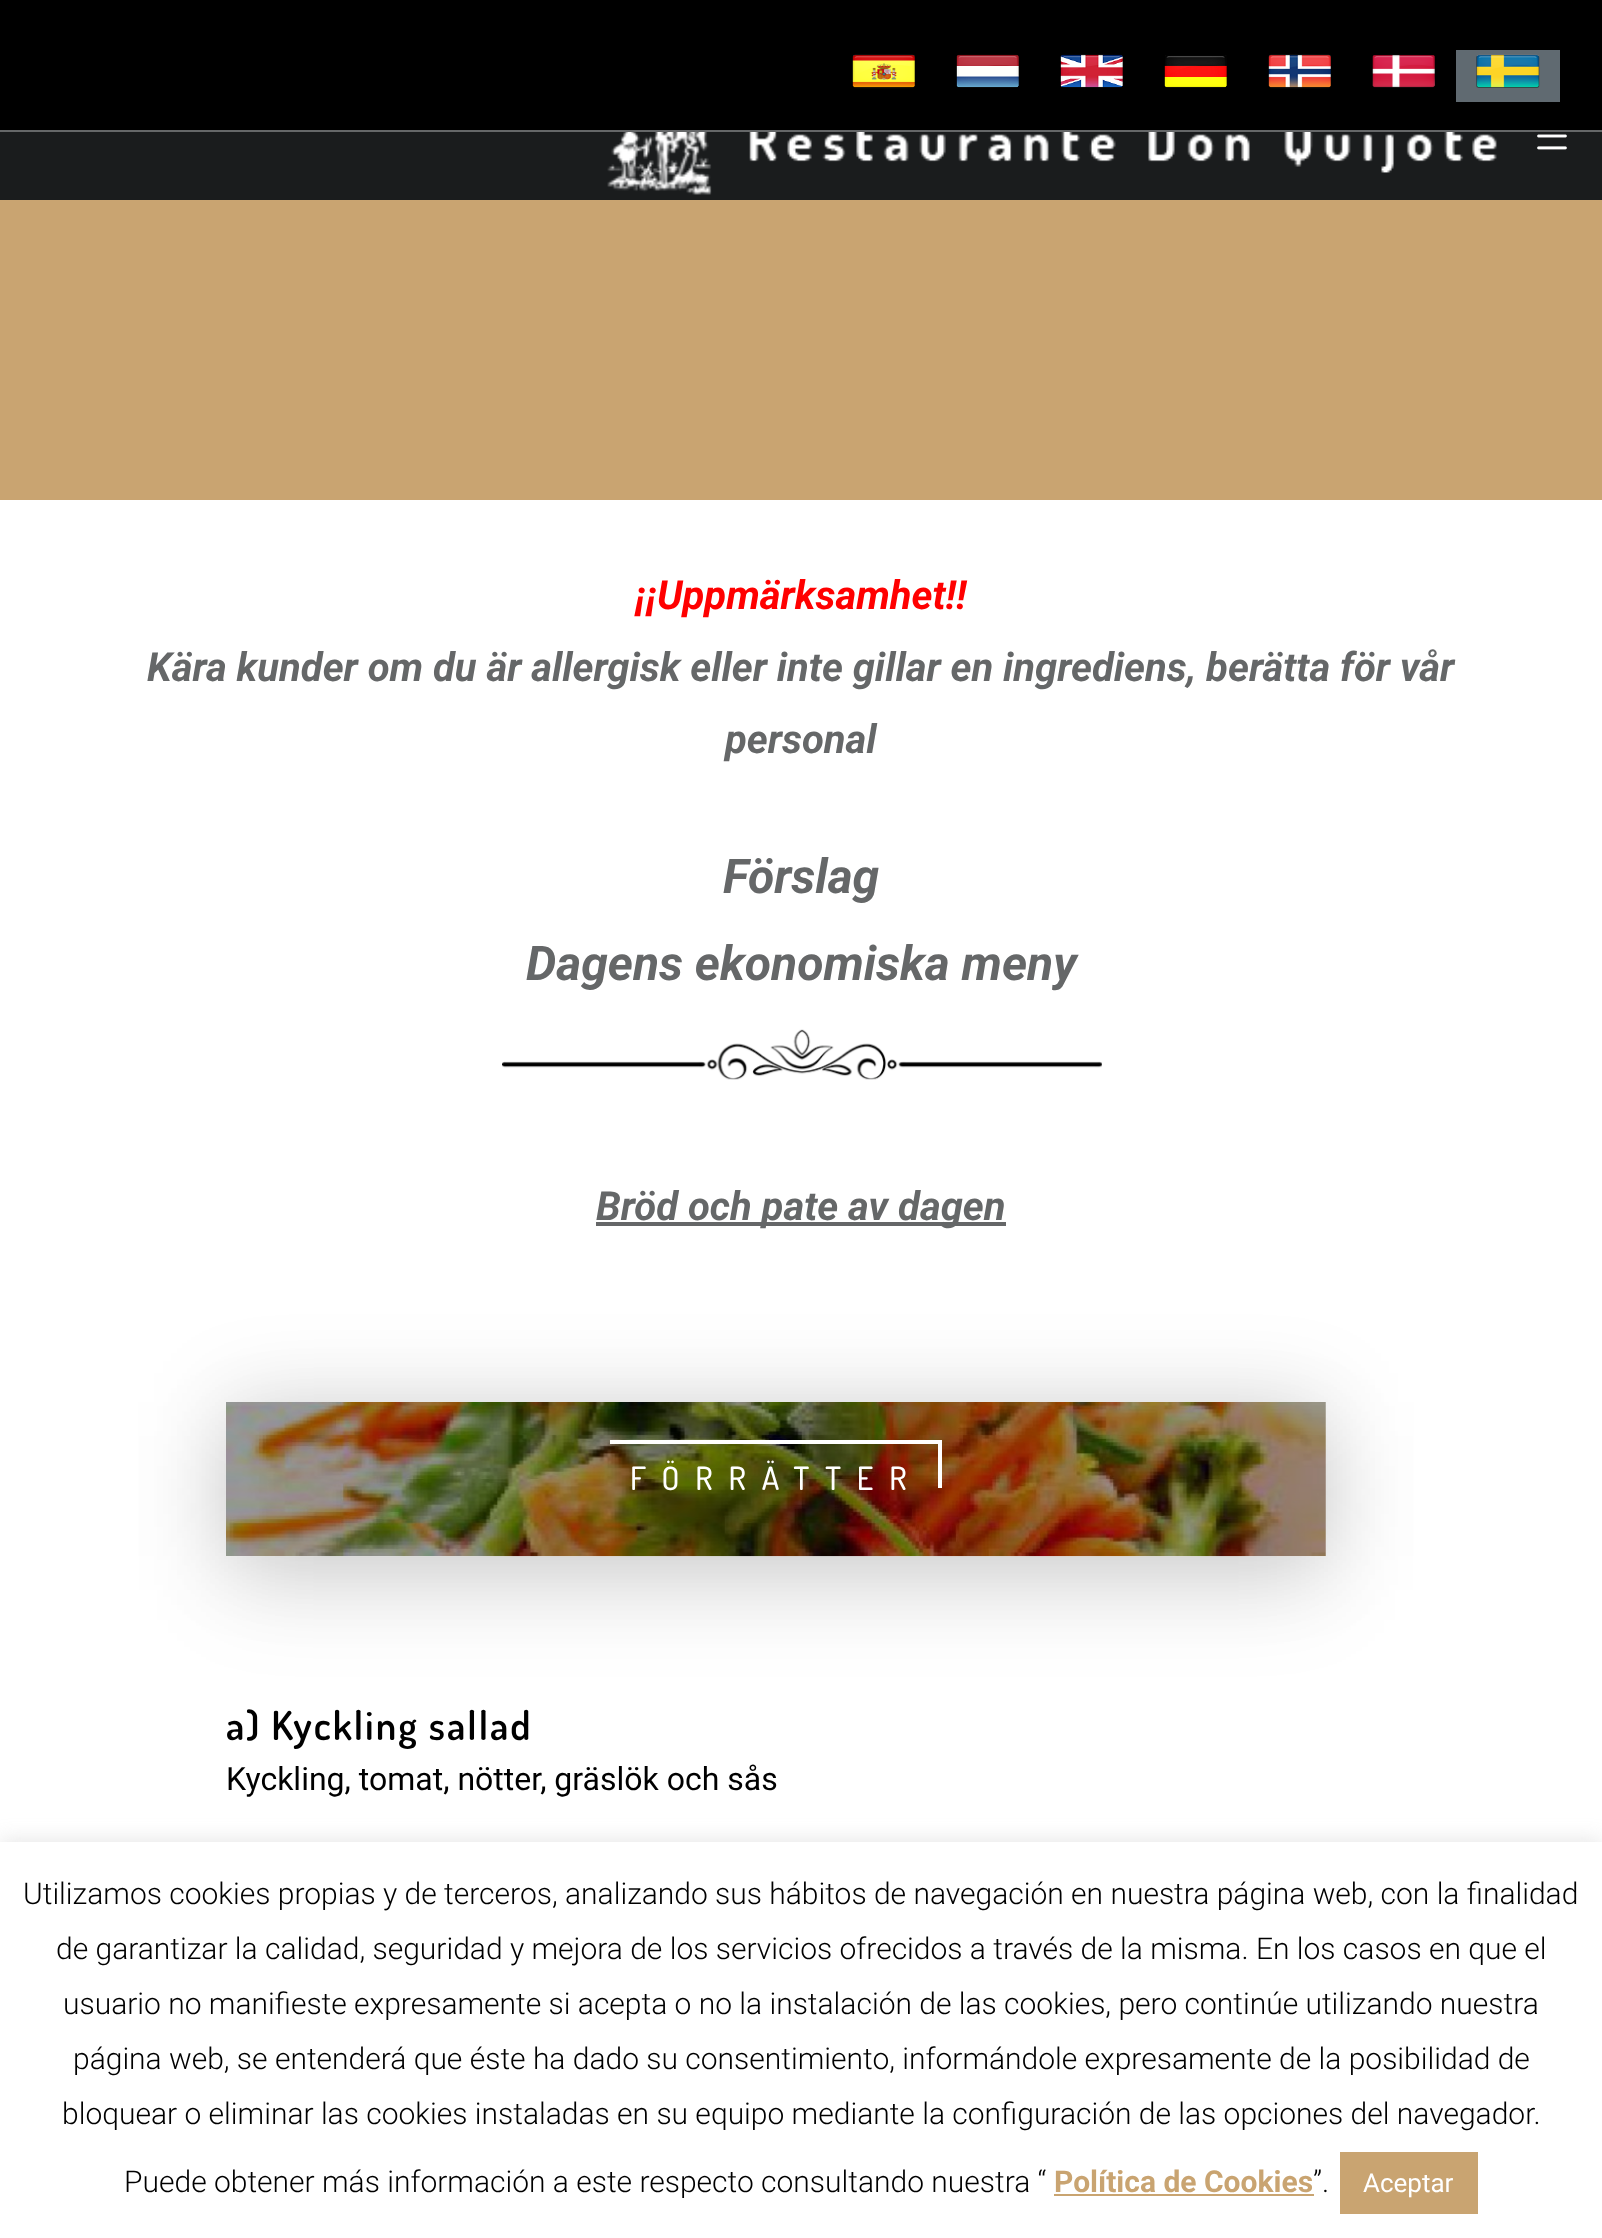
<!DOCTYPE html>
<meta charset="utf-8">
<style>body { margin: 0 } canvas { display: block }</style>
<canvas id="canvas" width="1602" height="2238"></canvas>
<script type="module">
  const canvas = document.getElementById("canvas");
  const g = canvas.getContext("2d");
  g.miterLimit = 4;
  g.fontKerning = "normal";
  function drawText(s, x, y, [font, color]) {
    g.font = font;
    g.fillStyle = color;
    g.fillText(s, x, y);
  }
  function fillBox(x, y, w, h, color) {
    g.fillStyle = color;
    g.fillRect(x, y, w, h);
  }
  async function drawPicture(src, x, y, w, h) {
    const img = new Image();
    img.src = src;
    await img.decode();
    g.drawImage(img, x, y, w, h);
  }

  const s1 = ["italic bold 40px Roboto", "#FF0000"];
  const s2 = ["italic bold 40px Roboto", "#656768"];
  const s3 = ["italic bold 48px Roboto", "#656768"];
  const s4 = ["500 32px Dosis", "#FFFFFF"];
  const s5 = ["600 40px Dosis", "#000000"];
  const s6 = ["32px Roboto", "#000000"];
  const s7 = ["300 30px Roboto", "#000000"];
  const s8 = ["bold 30px Roboto", "#C9A471"];
  const s9 = ["26px Roboto", "#FFFFFF"];

  fillBox(0, 0, 1602, 2238, "#FFFFFF");
  fillBox(0, 132, 1602, 68, "#1A1C1D");
  fillBox(0, 0, 1602, 130, "#000000");
  fillBox(0, 130, 1602, 2, "#656768");
  await drawPicture("pic1.png", 852, 54, 63, 35);
  await drawPicture("pic2.png", 956, 54, 63, 34);
  await drawPicture("pic3.png", 1060, 54, 63, 34);
  await drawPicture("pic4.png", 1164, 55, 63, 33);
  await drawPicture("pic5.png", 1268, 54, 63, 35);
  await drawPicture("pic6.png", 1372, 54, 63, 34);
  fillBox(1456, 50, 104, 52, "#606A71");
  await drawPicture("pic7.png", 1476, 54, 64, 34);
  await drawPicture("pic8.png", 607, 132, 890, 63);
  await drawPicture("pic9.png", 1537, 134, 30, 16);
  fillBox(0, 200, 1602, 300, "#C9A471");
  drawText("¡¡Uppmärksamhet!!", 635, 609, s1);
  drawText("Kära kunder om du är allergisk eller inte gillar en ingrediens, berätta för vår", 147, 681, s2);
  drawText("personal", 725, 753, s2);
  drawText("Förslag", 723, 893, s3);
  drawText("Dagens ekonomiska meny", 526, 980, s3);
  await drawPicture("pic10.png", 502, 1029, 600, 51);
  fillBox(596, 1222, 410, 4, "#656768");
  drawText("Bröd och pate av dagen", 596, 1220, s2);
  g.fillStyle = "rgba(0, 0, 0, 0.1)";
  g.filter = "blur(46px)";
  g.beginPath();
  g.rect(226, 1436, 1100, 154);
  g.fill();
  g.filter = "none";
  g.fillStyle = "rgba(0, 0, 0, 0.14)";
  g.filter = "blur(44px)";
  g.beginPath();
  g.rect(226, 1402, 1100, 154);
  g.fill();
  g.filter = "none";
  await drawPicture("pic11.png", 226, 1402, 1100, 155);
  fillBox(610, 1440, 332, 4, "#FFFFFF");
  g.letterSpacing = "16px";
  drawText("FÖRRÄTTER", 630, 1490, s4);
  fillBox(938, 1440, 4, 48, "#FFFFFF");
  g.letterSpacing = "2px";
  drawText("a) Kyckling sallad", 226, 1740, s5);
  g.letterSpacing = "0px";
  drawText("Kyckling, tomat, nötter, gräslök och sås", 226, 1790, s6);
  g.fillStyle = "rgba(172, 171, 171, 0.3)";
  g.filter = "blur(10px)";
  g.beginPath();
  g.rect(0, 1840, 1602, 396);
  g.fill();
  g.filter = "none";
  fillBox(0, 1842, 1602, 396, "#FFFFFF");
  drawText("Utilizamos cookies propias y de terceros, analizando sus hábitos de navegación en nuestra página web, con la finalidad", 23, 1904, s7);
  drawText("de garantizar la calidad, seguridad y mejora de los servicios ofrecidos a través de la misma. En los casos en que el", 56, 1959, s7);
  drawText("usuario no manifieste expresamente si acepta o no la instalación de las cookies, pero continúe utilizando nuestra", 63, 2014, s7);
  drawText("página web, se entenderá que éste ha dado su consentimiento, informándole expresamente de la posibilidad de", 73, 2069, s7);
  drawText("bloquear o eliminar las cookies instaladas en su equipo mediante la configuración de las opciones del navegador.", 62, 2124, s7);
  drawText("Puede obtener más información a este respecto consultando nuestra “", 124, 2192, s7);
  drawText("Política de Cookies", 1054, 2192, s8);
  fillBox(1054, 2194, 260, 2, "#C9A471");
  drawText("”.", 1313, 2192, s7);
  fillBox(1340, 2152, 138, 62, "#C9A471");
  drawText("Aceptar", 1363, 2192, s9);
</script>
